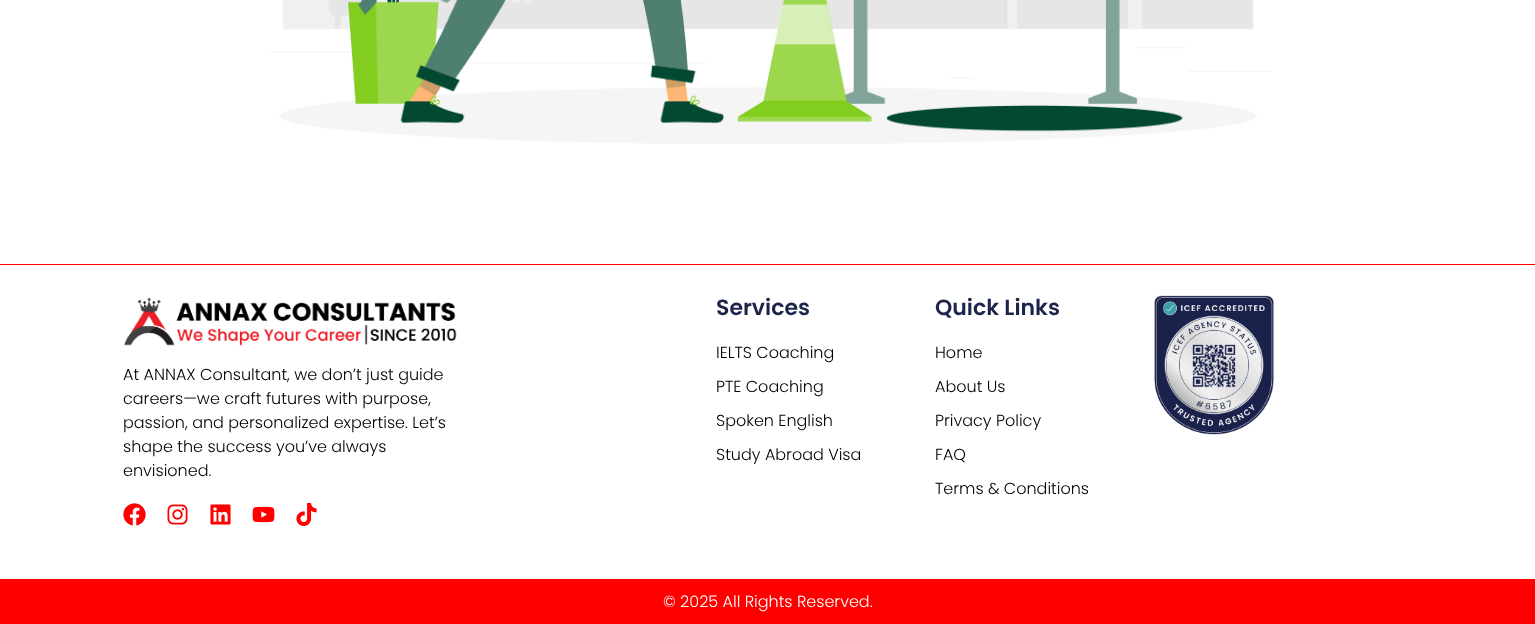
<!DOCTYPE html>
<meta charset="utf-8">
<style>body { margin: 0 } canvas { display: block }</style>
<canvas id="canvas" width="1535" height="624"></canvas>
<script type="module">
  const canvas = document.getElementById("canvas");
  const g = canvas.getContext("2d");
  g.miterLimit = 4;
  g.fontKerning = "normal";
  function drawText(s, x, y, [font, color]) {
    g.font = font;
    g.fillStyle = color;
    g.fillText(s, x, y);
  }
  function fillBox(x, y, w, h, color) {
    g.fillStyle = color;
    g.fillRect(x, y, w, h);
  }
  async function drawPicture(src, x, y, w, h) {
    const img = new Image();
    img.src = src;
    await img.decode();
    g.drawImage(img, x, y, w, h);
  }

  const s1 = ["300 16px Poppins", "#000000"];
  const s2 = ["600 22px Poppins", "#1C244B"];
  const s3 = ["300 16px Poppins", "#FFFFFF"];

  fillBox(0, 0, 1535, 624, "#FFFFFF");
  await drawPicture("pic1.png", 270, 0, 1002, 144);
  fillBox(0, 264, 1535, 1, "#FF0000");
  await drawPicture("pic2.png", 124, 297, 333, 49);
  drawText("At ANNAX Consultant, we don’t just guide", 123, 380, s1);
  drawText("careers—we craft futures with purpose,", 123, 404, s1);
  drawText("passion, and personalized expertise. Let’s", 123, 428, s1);
  drawText("shape the success you’ve always", 123, 452, s1);
  drawText("envisioned.", 123, 476, s1);
  await drawPicture("pic3.png", 123, 503, 23, 23);
  await drawPicture("pic4.png", 167, 504, 21, 21);
  await drawPicture("pic5.png", 210, 504, 21, 21);
  await drawPicture("pic6.png", 252, 506, 23, 17);
  await drawPicture("pic7.png", 296, 503, 21, 23);
  drawText("Services", 716, 315, s2);
  drawText("IELTS Coaching", 716, 358, s1);
  drawText("PTE Coaching", 716, 392, s1);
  drawText("Spoken English", 716, 426, s1);
  drawText("Study Abroad Visa", 716, 460, s1);
  drawText("Quick Links", 935, 315, s2);
  drawText("Home", 935, 358, s1);
  drawText("About Us", 935, 392, s1);
  drawText("Privacy Policy", 935, 426, s1);
  drawText("FAQ", 935, 460, s1);
  drawText("Terms & Conditions", 935, 494, s1);
  await drawPicture("pic8.png", 1154, 295, 120, 140);
  fillBox(0, 579, 1535, 45, "#FF0000");
  drawText("© 2025 All Rights Reserved.", 663, 607, s3);
</script>
